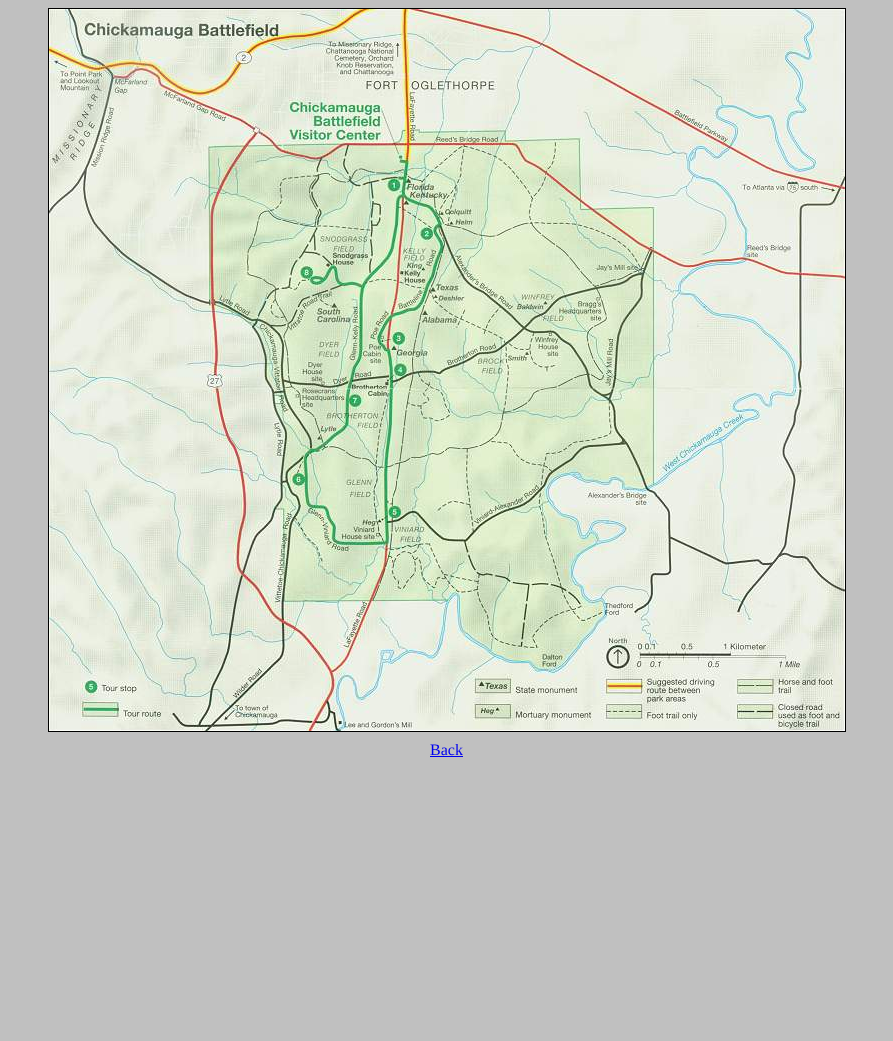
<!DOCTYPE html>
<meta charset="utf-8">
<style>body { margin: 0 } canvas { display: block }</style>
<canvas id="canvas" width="893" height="1041"></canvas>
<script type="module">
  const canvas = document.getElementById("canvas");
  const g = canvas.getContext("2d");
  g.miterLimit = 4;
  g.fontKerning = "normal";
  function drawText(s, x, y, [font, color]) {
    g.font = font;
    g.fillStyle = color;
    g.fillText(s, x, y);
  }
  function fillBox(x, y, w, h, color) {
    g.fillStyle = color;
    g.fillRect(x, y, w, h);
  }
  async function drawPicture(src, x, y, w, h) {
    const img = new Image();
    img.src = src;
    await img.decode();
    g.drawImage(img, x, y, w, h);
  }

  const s1 = ["16px Liberation Serif", "#0000EE"];

  fillBox(0, 0, 893, 1041, "#C0C0C0");
  g.strokeStyle = "#000000";
  g.strokeRect(48.5, 8.5, 797, 723);
  await drawPicture("pic1.png", 49, 9, 796, 722);
  drawText("Back", 430, 755, s1);
  fillBox(430, 756, 33, 1, "#0000EE");
</script>
